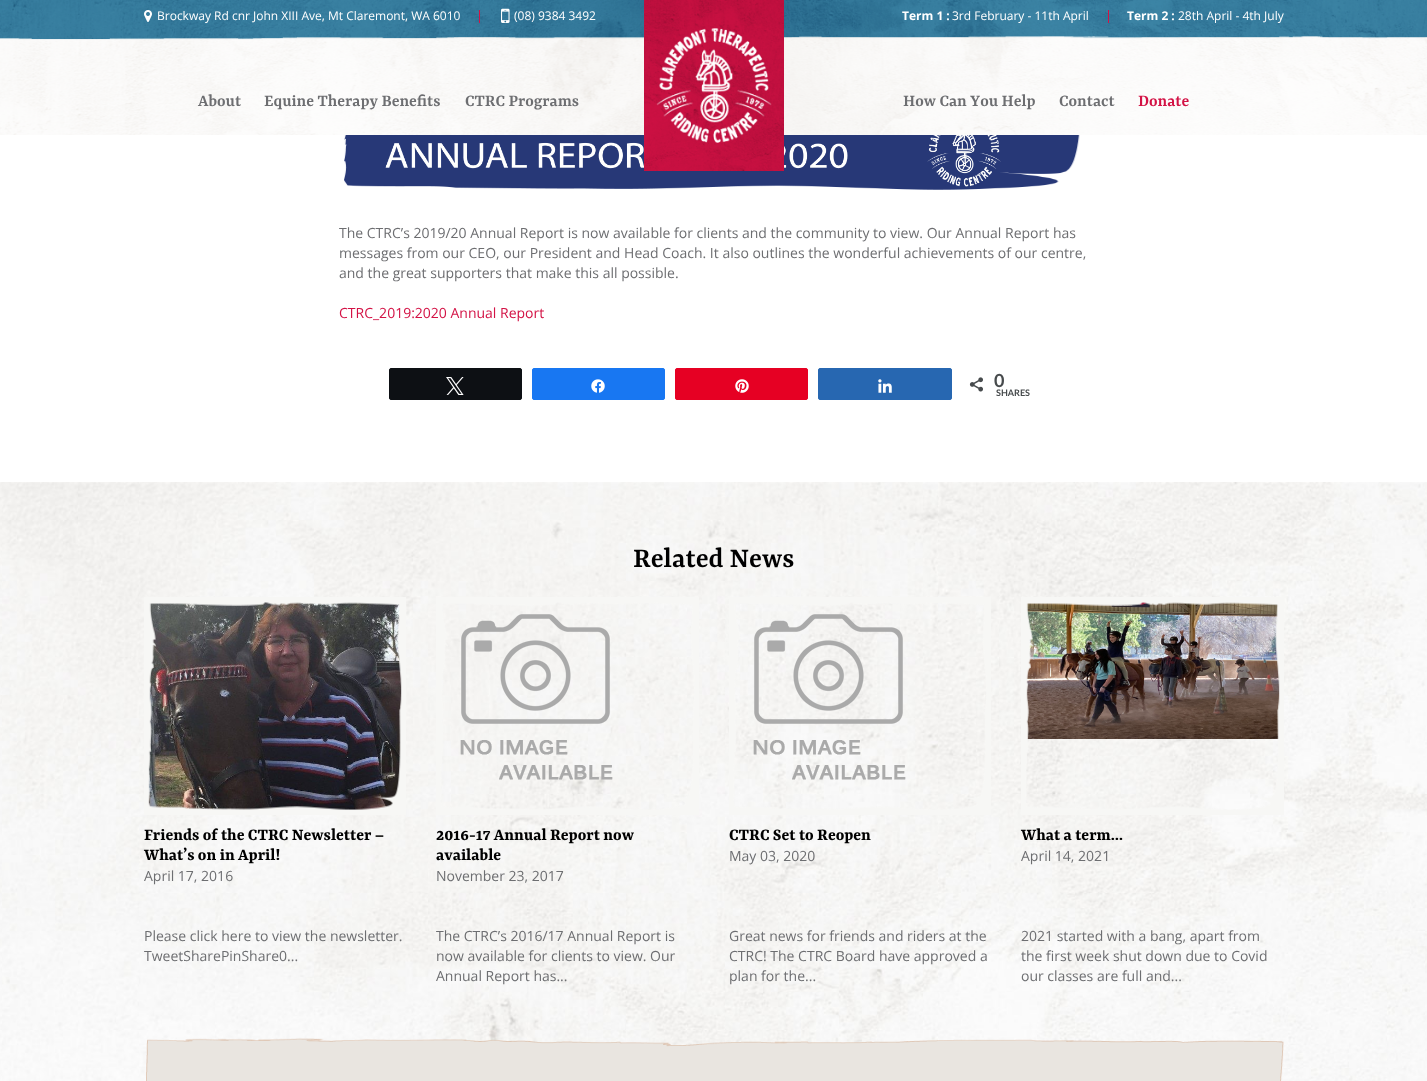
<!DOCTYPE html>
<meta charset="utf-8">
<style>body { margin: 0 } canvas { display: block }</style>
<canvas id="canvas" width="1427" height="1081"></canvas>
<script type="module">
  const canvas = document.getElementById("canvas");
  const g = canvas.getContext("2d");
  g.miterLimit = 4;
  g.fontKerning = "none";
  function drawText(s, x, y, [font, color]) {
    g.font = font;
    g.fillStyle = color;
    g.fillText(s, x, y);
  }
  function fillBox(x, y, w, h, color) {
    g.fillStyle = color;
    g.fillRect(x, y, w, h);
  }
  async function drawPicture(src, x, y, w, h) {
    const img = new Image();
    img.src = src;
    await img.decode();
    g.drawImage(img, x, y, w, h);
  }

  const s1 = ["12px Open Sans", "#FFFFFF"];
  const s2 = ["bold 12px Open Sans", "#FFFFFF"];
  const s3 = ["600 18px Yrsa", "#6D6E71"];
  const s4 = ["600 18px Yrsa", "#D31245"];
  const s5 = ["14px Open Sans", "#6D6E71"];
  const s6 = ["14px Open Sans", "#D31245"];
  const s7 = ["bold 18px Lato", "#474B4D"];
  const s8 = ["bold 9px Lato", "#474B4D"];
  const s9 = ["600 30px Yrsa", "#000000"];
  const s10 = ["bold 18px Yrsa", "#000000"];

  fillBox(0, 0, 1427, 1081, "#FFFFFF");
  await drawPicture("pic1.png", 0, 36, 1427, 99);
  await drawPicture("pic3.png", 0, 0, 1427, 40);
  await drawPicture("pic7.png", 344, 135, 736, 55);
  await drawPicture("pic6.png", 339, 135, 749, 58);
  await drawPicture("pic2.png", 644, 0, 140, 171);
  await drawPicture("pic4.png", 144, 10, 8, 12);
  drawText("Brockway Rd cnr John XIII Ave, Mt Claremont, WA 6010", 157, 20, s1);
  fillBox(479, 10, 1, 13, "#D31245");
  await drawPicture("pic5.png", 501, 8, 9, 15);
  drawText("(08) 9384 3492", 514, 20, s1);
  drawText("Term 1 :", 902, 20, s2);
  drawText("3rd February - 11th April", 952, 20, s1);
  fillBox(1108, 10, 1, 13, "#D31245");
  drawText("Term 2 :", 1127, 20, s2);
  drawText("28th April - 4th July", 1178, 20, s1);
  drawText("About", 198, 106, s3);
  drawText("Equine Therapy Benefits", 264, 106, s3);
  drawText("CTRC Programs", 465, 106, s3);
  drawText("How Can You Help", 903, 106, s3);
  drawText("Contact", 1059, 106, s3);
  drawText("Donate", 1138, 106, s4);
  drawText("The CTRC’s 2019/20 Annual Report is now available for clients and the community to view. Our Annual Report has", 339, 238, s5);
  drawText("messages from our CEO, our President and Head Coach. It also outlines the wonderful achievements of our centre,", 339, 258, s5);
  drawText("and the great supporters that make this all possible.", 339, 278, s5);
  drawText("CTRC_2019:2020 Annual Report", 339, 318, s6);
  g.fillStyle = "#0D1014";
  g.beginPath();
  g.roundRect(389.5, 368.5, 132, 31, 1.5);
  g.fill();
  g.strokeStyle = "#0D1014";
  g.stroke();
  await drawPicture("pic8.png", 446, 377, 18, 18);
  g.fillStyle = "#1877F2";
  g.beginPath();
  g.roundRect(532.5, 368.5, 132, 31, 1.5);
  g.fill();
  g.strokeStyle = "#1877F2";
  g.stroke();
  await drawPicture("pic9.png", 591, 379, 14, 14);
  g.fillStyle = "#E60023";
  g.beginPath();
  g.roundRect(675.5, 368.5, 132, 31, 1.5);
  g.fill();
  g.strokeStyle = "#E60023";
  g.stroke();
  await drawPicture("pic10.png", 735, 379, 14, 14);
  g.fillStyle = "#2767B1";
  g.beginPath();
  g.roundRect(818.5, 368.5, 133, 31, 1.5);
  g.fill();
  g.strokeStyle = "#2767B1";
  g.stroke();
  await drawPicture("pic11.png", 878, 379, 14, 14);
  await drawPicture("pic12.png", 969, 377, 14, 15);
  drawText("0", 994, 387, s7);
  drawText("SHARES", 996, 396, s8);
  await drawPicture("pic13.png", 0, 482, 1427, 599);
  drawText("Related News", 633, 567, s9);
  await drawPicture("pic15.png", 148, 602, 254, 208);
  await drawPicture("pic14.png", 144, 597, 262, 218);
  drawText("Friends of the CTRC Newsletter –", 144, 840, s10);
  drawText("What’s on in April!", 144, 860, s10);
  drawText("April 17, 2016", 144, 881, s5);
  drawText("Please click here to view the newsletter.", 144, 941, s5);
  drawText("TweetSharePinShare0...", 144, 961, s5);
  await drawPicture("pic17.png", 460, 614, 153, 166);
  await drawPicture("pic16.png", 436, 597, 263, 218);
  drawText("2016-17 Annual Report now", 436, 840, s10);
  drawText("available", 436, 860, s10);
  drawText("November 23, 2017", 436, 881, s5);
  drawText("The CTRC’s 2016/17 Annual Report is", 436, 941, s5);
  drawText("now available for clients to view. Our", 436, 961, s5);
  drawText("Annual Report has...", 436, 981, s5);
  await drawPicture("pic19.png", 753, 614, 153, 166);
  await drawPicture("pic18.png", 729, 597, 262, 218);
  drawText("CTRC Set to Reopen", 729, 840, s10);
  drawText("May 03, 2020", 729, 861, s5);
  drawText("Great news for friends and riders at the", 729, 941, s5);
  drawText("CTRC! The CTRC Board have approved a", 729, 961, s5);
  drawText("plan for the...", 729, 981, s5);
  await drawPicture("pic21.png", 1026, 602, 254, 137);
  await drawPicture("pic20.png", 1021, 597, 263, 218);
  drawText("What a term…", 1021, 840, s10);
  drawText("April 14, 2021", 1021, 861, s5);
  drawText("2021 started with a bang, apart from", 1021, 941, s5);
  drawText("the first week shut down due to Covid", 1021, 961, s5);
  drawText("our classes are full and...", 1021, 981, s5);
  await drawPicture("pic22.png", 146, 1038, 1138, 43);
</script>
